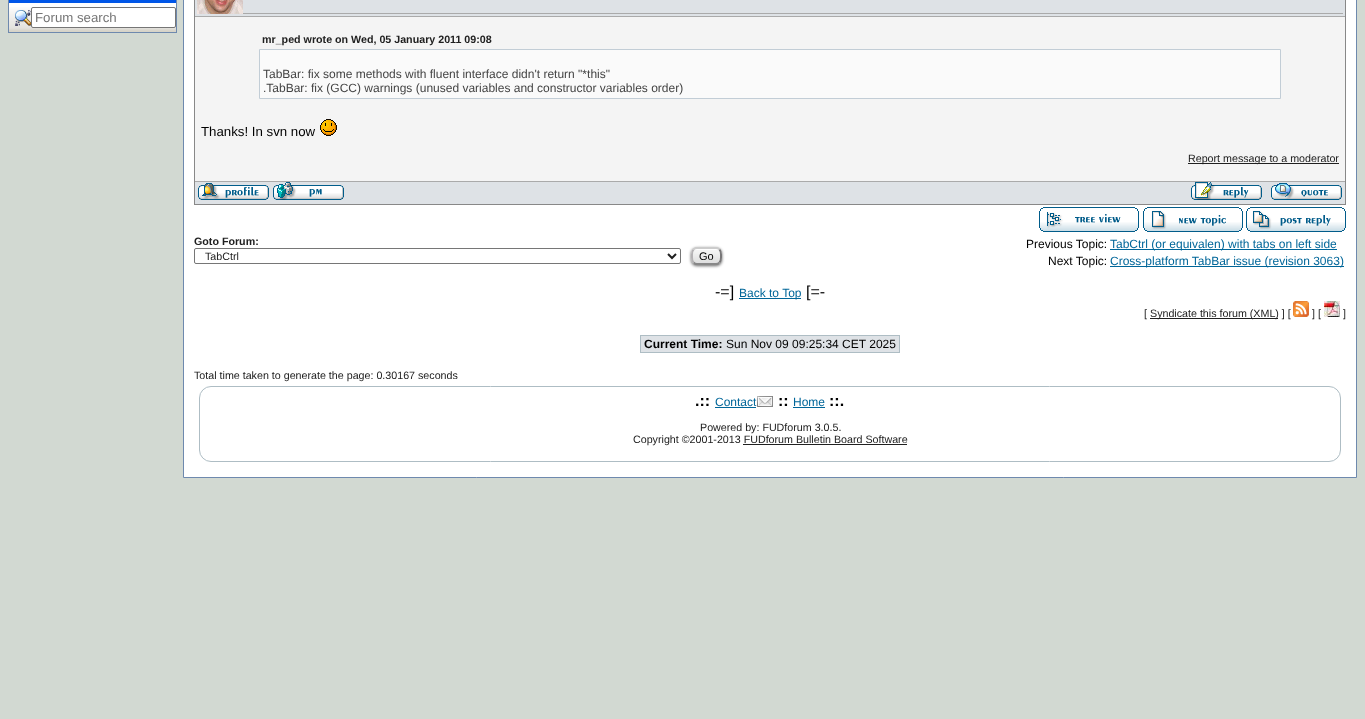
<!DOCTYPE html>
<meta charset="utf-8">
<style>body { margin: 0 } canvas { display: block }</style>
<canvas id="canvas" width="1365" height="719"></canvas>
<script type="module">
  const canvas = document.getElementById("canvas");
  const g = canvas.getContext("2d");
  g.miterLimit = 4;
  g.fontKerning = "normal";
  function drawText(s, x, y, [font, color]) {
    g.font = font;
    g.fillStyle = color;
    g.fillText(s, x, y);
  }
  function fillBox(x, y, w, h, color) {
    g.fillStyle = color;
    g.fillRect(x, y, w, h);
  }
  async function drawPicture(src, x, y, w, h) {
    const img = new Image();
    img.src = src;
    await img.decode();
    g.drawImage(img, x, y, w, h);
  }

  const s1 = ["13.25px Liberation Sans", "#757575"];
  const s2 = ["bold 10.7px Liberation Sans", "#202020"];
  const s3 = ["12px Liberation Sans", "#444444"];
  const s4 = ["13.25px Liberation Sans", "#000000"];
  const s5 = ["10.7px Liberation Sans", "#202020"];
  const s6 = ["12px Liberation Sans", "#000000"];
  const s7 = ["12px Liberation Sans", "#006699"];
  const s8 = ["11px Liberation Sans", "#000000"];
  const s9 = ["16px Liberation Sans", "#000000"];
  const s10 = ["bold 12px Liberation Sans", "#000000"];
  const s11 = ["bold 16px Liberation Sans", "#000000"];

  fillBox(0, 0, 1365, 719, "#D2D9D2");
  fillBox(9, 3, 167, 4, "#FFFFFF");
  g.strokeStyle = "#6E89AE";
  g.strokeRect(8.5, -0.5, 168, 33);
  fillBox(9, 0, 167, 3, "#0056E8");
  await drawPicture("pic1.png", 9, 7, 167, 25);
  await drawPicture("pic2.png", 15, 10, 16, 16);
  g.fillStyle = "#FFFFFF";
  g.beginPath();
  g.roundRect(31.5, 7.5, 144, 20, 1.5);
  g.fill();
  g.strokeStyle = "#767676";
  g.stroke();
  drawText("Forum search", 35, 22, s1);
  g.fillStyle = "#FFFFFF";
  g.beginPath();
  g.rect(183.5, -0.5, 1173, 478);
  g.fill();
  g.strokeStyle = "#6E89AE";
  g.stroke();
  g.strokeStyle = "#888888";
  g.strokeRect(194.5, -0.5, 1151, 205);
  fillBox(195, 0, 1150, 16, "#DEE2E6");
  fillBox(195, 16, 1150, 1, "#AAAAAA");
  fillBox(243, 13, 1100, 1, "#AAAAAA");
  await drawPicture("pic3.png", 197, 0, 46, 14);
  fillBox(195, 17, 1150, 164, "#F4F4F4");
  fillBox(195, 181, 1150, 1, "#AAAAAA");
  drawText("mr_ped wrote on Wed, 05 January 2011 09:08", 262, 43, s2);
  g.fillStyle = "#FAFAFA";
  g.beginPath();
  g.rect(259.5, 49.5, 1021, 49);
  g.fill();
  g.strokeStyle = "#C2CDD6";
  g.stroke();
  drawText("TabBar: fix some methods with fluent interface didn't return \"*this\"", 263, 78, s3);
  drawText(".TabBar: fix (GCC) warnings (unused variables and constructor variables order)", 263, 92, s3);
  drawText("Thanks! In svn now", 201, 136, s4);
  await drawPicture("pic4.png", 320, 119, 17, 17);
  fillBox(1188, 163, 151, 1, "#202020");
  drawText("Report message to a moderator", 1188, 162, s5);
  fillBox(195, 182, 1150, 22, "#DEE2E6");
  await drawPicture("pic5.png", 198, 183, 71, 17);
  await drawPicture("pic6.png", 273, 182, 71, 18);
  await drawPicture("pic7.png", 1191, 182, 71, 18);
  await drawPicture("pic8.png", 1271, 183, 71, 17);
  await drawPicture("pic9.png", 1039, 207, 100, 25);
  await drawPicture("pic10.png", 1143, 207, 100, 25);
  await drawPicture("pic11.png", 1246, 207, 100, 25);
  drawText("Goto Forum:", 194, 245, s2);
  drawText("Previous Topic:", 1026, 248, s6);
  fillBox(1110, 249, 227, 1, "#006699");
  drawText("TabCtrl (or equivalen) with tabs on left side", 1110, 248, s7);
  drawText("Next Topic:", 1048, 265, s6);
  fillBox(1110, 266, 234, 1, "#006699");
  drawText("Cross-platform TabBar issue (revision 3063)", 1110, 265, s7);
  g.beginPath();
  g.roundRect(194.5, 248.5, 486, 15, 1.5);
  g.strokeStyle = "#767676";
  g.stroke();
  g.beginPath();
  g.moveTo(668, 254);
  g.lineTo(672, 258);
  g.lineTo(676, 254);
  g.strokeStyle = "#202020";
  g.lineWidth = 2;
  g.stroke();
  drawText("TabCtrl", 205, 260, s5);
  g.fillStyle = "rgba(0, 0, 0, 0.6)";
  g.filter = "blur(1.5px)";
  g.beginPath();
  g.roundRect(691, 248, 31, 18, 6);
  g.fill();
  g.filter = "none";
  await drawPicture("pic12.png", 691, 249, 31, 15);
  g.beginPath();
  g.moveTo(693.5, 249.5);
  g.bezierCurveTo(694.5, 248.5, 695.5, 248, 697, 248);
  g.lineTo(716, 248);
  g.bezierCurveTo(717.5, 248, 718.5, 248.5, 719.5, 249.5);
  g.strokeStyle = "#CCCCCC";
  g.stroke();
  g.beginPath();
  g.moveTo(719.5, 249.5);
  g.bezierCurveTo(721.5, 251.5, 721, 253.5, 721, 256);
  g.bezierCurveTo(721, 258.5, 721.5, 260.5, 719.5, 262.5);
  g.strokeStyle = "#787778";
  g.stroke();
  g.beginPath();
  g.moveTo(719.5, 262.5);
  g.bezierCurveTo(718.5, 263.5, 717.5, 264, 716, 264);
  g.lineTo(697, 264);
  g.bezierCurveTo(695.5, 264, 694.5, 263.5, 693.5, 262.5);
  g.strokeStyle = "#888888";
  g.stroke();
  g.beginPath();
  g.moveTo(693.5, 262.5);
  g.bezierCurveTo(691.5, 260.5, 692, 258.5, 692, 256);
  g.bezierCurveTo(692, 253.5, 691.5, 251.5, 693.5, 249.5);
  g.strokeStyle = "#B4B2B4";
  g.stroke();
  drawText("Go", 699, 260, s8);
  drawText("-=]", 715, 297, s9);
  fillBox(739, 298, 62, 1, "#006699");
  drawText("Back to Top", 739, 297, s7);
  drawText("[=-", 806, 297, s9);
  drawText("[", 1144, 317, s5);
  fillBox(1150, 318, 128, 1, "#202020");
  drawText("Syndicate this forum (XML) ] [", 1150, 317, s5);
  await drawPicture("pic13.png", 1293, 301, 16, 16);
  drawText("] [", 1312, 317, s5);
  await drawPicture("pic14.png", 1324, 301, 16, 16);
  drawText("]", 1343, 317, s5);
  fillBox(641, 336, 258, 16, "#DEE2E6");
  drawText("Current Time:", 644, 348, s10);
  fillBox(640, 335, 260, 1, "#AEBDC4");
  fillBox(640, 352, 83, 1, "#AEBDC4");
  fillBox(640, 335, 1, 18, "#AEBDC4");
  drawText("Sun Nov 09 09:25:34 CET 2025", 726, 348, s6);
  fillBox(899, 335, 1, 18, "#AEBDC4");
  fillBox(723, 352, 177, 1, "#AEBDC4");
  drawText("Total time taken to generate the page: 0.30167 seconds", 194, 379, s5);
  g.beginPath();
  g.roundRect(199.5, 386.5, 1141, 75, 11.5);
  g.strokeStyle = "#AEBDC4";
  g.lineWidth = 1;
  g.stroke();
  drawText(".::", 695, 406, s11);
  drawText("Contact", 715, 406, s7);
  fillBox(715, 407, 41, 1, "#006699");
  await drawPicture("pic15.png", 757, 396, 16, 11);
  drawText("::", 778, 406, s11);
  drawText("Home", 793, 406, s7);
  fillBox(793, 407, 32, 1, "#006699");
  drawText("::.", 829, 406, s11);
  drawText("Powered by: FUDforum 3.0.5.", 700, 431, s5);
  drawText("Copyright ©2001-2013 FUDforum Bulletin Board Software", 633, 443, s5);
  fillBox(743, 444, 164, 1, "#202020");
</script>
